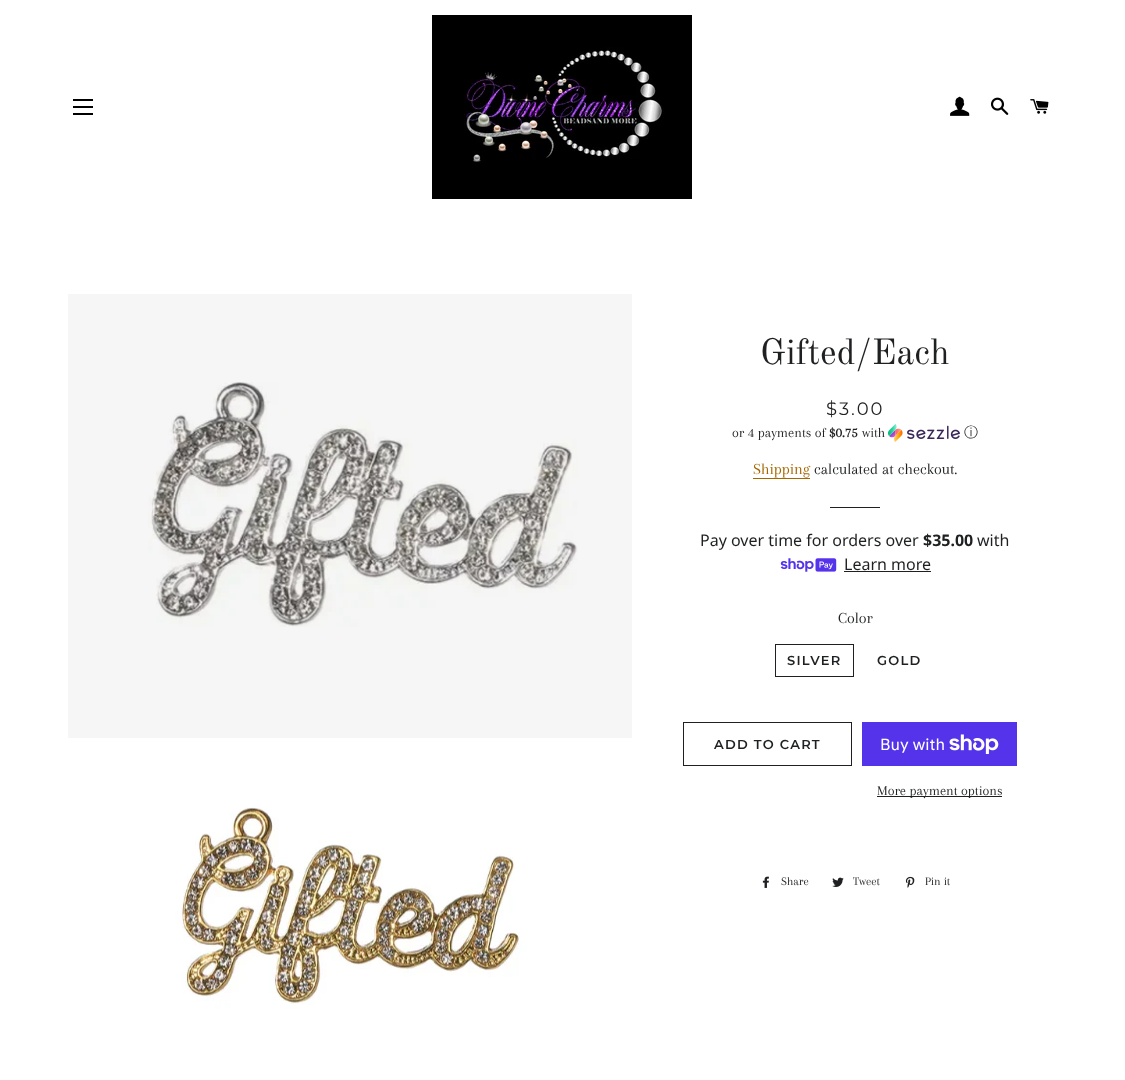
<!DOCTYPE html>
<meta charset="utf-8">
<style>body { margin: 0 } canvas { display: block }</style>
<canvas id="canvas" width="1125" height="1080"></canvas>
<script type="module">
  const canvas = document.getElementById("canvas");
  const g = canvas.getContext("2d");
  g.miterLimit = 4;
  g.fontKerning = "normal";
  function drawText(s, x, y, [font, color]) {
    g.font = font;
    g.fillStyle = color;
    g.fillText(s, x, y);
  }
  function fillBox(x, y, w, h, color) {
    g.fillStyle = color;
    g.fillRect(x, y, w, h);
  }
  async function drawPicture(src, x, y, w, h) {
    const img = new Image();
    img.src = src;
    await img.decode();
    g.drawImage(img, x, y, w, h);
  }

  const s1 = ["36px Old Standard TT", "#1F2021"];
  const s2 = ["100 18px Montserrat", "#1F2021"];
  const s3 = ["14px Arapey", "#1F2021"];
  const s4 = ["bold 14px Arapey", "#1F2021"];
  const s5 = ["500 14px WenQuanYi Zen Hei", "#1F2021"];
  const s6 = ["16px Arapey", "#A56600"];
  const s7 = ["16px Arapey", "#1F2021"];
  const s8 = ["16px Noto Sans", "#1F2021"];
  const s9 = ["bold 16px Noto Sans", "#1F2021"];
  const s10 = ["600 13px Montserrat", "#1F2021"];
  const s11 = ["16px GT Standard", "#FFFFFF"];
  const s12 = ["12px Arapey", "#1F2021"];

  fillBox(0, 0, 1125, 1080, "#FFFFFF");
  fillBox(73, 99, 20, 2, "#000000");
  fillBox(73, 106, 20, 2, "#000000");
  fillBox(73, 113, 20, 2, "#000000");
  await drawPicture("pic1.png", 432, 15, 260, 184);
  await drawPicture("pic2.png", 950, 96, 20, 20);
  await drawPicture("pic3.png", 991, 97, 18, 18);
  await drawPicture("pic4.png", 1030, 99, 19, 15);
  fillBox(68, 294, 564, 444, "#F6F6F6");
  await drawPicture("pic5.png", 148, 382, 430, 245);
  await drawPicture("pic6.png", 151, 753, 398, 276);
  drawText("Gifted/Each", 760, 364, s1);
  g.letterSpacing = "2px";
  drawText("$3.00", 826, 415, s2);
  g.letterSpacing = "0px";
  drawText("or 4 payments of", 732, 437, s3);
  drawText("$0.75", 829, 437, s4);
  drawText("with", 862, 437, s3);
  await drawPicture("pic7.png", 888, 424, 72, 18);
  drawText("ⓘ", 964, 437, s5);
  drawText("Shipping", 753, 474, s6);
  fillBox(753, 478, 57, 1, "#A56600");
  drawText("calculated at checkout.", 814, 474, s7);
  fillBox(830, 507, 50, 1, "#1F2021");
  drawText("Pay over time for orders over", 700, 546, s8);
  drawText("$35.00", 923, 546, s9);
  drawText("with", 977, 546, s8);
  await drawPicture("pic8.png", 780, 558, 57, 14);
  drawText("Learn more", 844, 570, s8);
  fillBox(844, 571, 87, 1, "#1F2021");
  drawText("Color", 838, 623, s7);
  g.strokeStyle = "#1F2021";
  g.strokeRect(775.5, 644.5, 78, 32);
  g.letterSpacing = "1.25px";
  drawText("SILVER", 787, 665, s10);
  drawText("GOLD", 877, 665, s10);
  g.strokeRect(683.5, 722.5, 168, 43);
  drawText("ADD TO CART", 714, 749, s10);
  fillBox(862, 722, 155, 44, "#5433EB");
  g.letterSpacing = "0px";
  drawText("Buy with", 880, 750, s11);
  await drawPicture("pic9.png", 949, 734, 50, 20);
  fillBox(877, 796, 125, 1, "#1F2021");
  drawText("More payment options", 877, 795, s3);
  await drawPicture("pic10.png", 762, 876, 7, 12);
  drawText("Share", 781, 885, s12);
  await drawPicture("pic11.png", 832, 877, 12, 10);
  drawText("Tweet", 853, 885, s12);
  await drawPicture("pic12.png", 905, 876, 10, 12);
  drawText("Pin it", 925, 885, s12);
</script>
